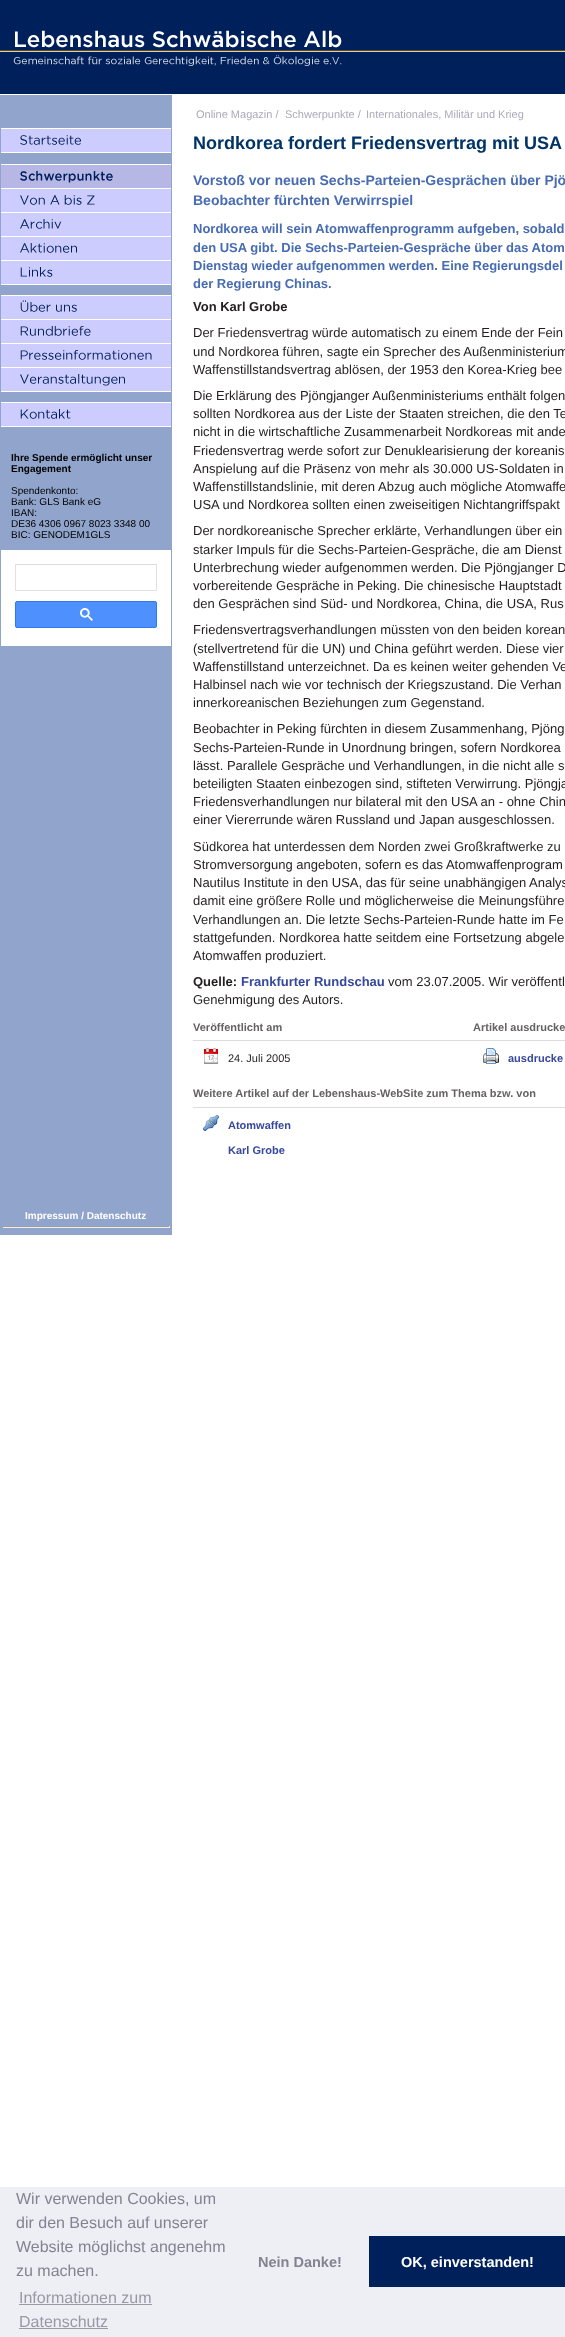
<!DOCTYPE html>
<meta charset="utf-8">
<style>body { margin: 0 } canvas { display: block }</style>
<canvas id="canvas" width="565" height="2337"></canvas>
<script type="module">
  const canvas = document.getElementById("canvas");
  const g = canvas.getContext("2d");
  g.miterLimit = 4;
  g.fontKerning = "normal";
  function drawText(s, x, y, [font, color]) {
    g.font = font;
    g.fillStyle = color;
    g.fillText(s, x, y);
  }
  function fillBox(x, y, w, h, color) {
    g.fillStyle = color;
    g.fillRect(x, y, w, h);
  }
  async function drawPicture(src, x, y, w, h) {
    const img = new Image();
    img.src = src;
    await img.decode();
    g.drawImage(img, x, y, w, h);
  }

  const s1 = ["bold 10px Liberation Sans", "#000000"];
  const s2 = ["10px Liberation Sans", "#000000"];
  const s3 = ["11px Liberation Sans", "#ABAABA"];
  const s4 = ["bold 18px Liberation Sans", "#003366"];
  const s5 = ["bold 14px Liberation Sans", "#486CB3"];
  const s6 = ["bold 13px Liberation Sans", "#486CB3"];
  const s7 = ["bold 13px Liberation Sans", "#231F20"];
  const s8 = ["13px Liberation Sans", "#231F20"];
  const s9 = ["bold 13px Liberation Sans", "#36489D"];
  const s10 = ["bold 11px Liberation Sans", "#656263"];
  const s11 = ["11px Liberation Sans", "#231F20"];
  const s12 = ["bold 11px Liberation Sans", "#36489D"];
  const s13 = ["bold 10px Liberation Sans", "#FFFFFF"];
  const s14 = ["16px Liberation Sans", "#838391"];
  const s15 = ["16px Liberation Sans", "#9899A5"];
  const s16 = ["bold 14.5px Liberation Sans", "#838391"];
  const s17 = ["bold 14.5px Liberation Sans", "#FFFFFF"];

  fillBox(0, 0, 565, 2337, "#FFFFFF");
  fillBox(0, 0, 565, 94, "#00205B");
  await drawPicture("pic1.png", 0, 30, 565, 36);
  fillBox(0, 95, 172, 1140, "#90A4CC");
  fillBox(1, 128, 170, 1, "#FFFFFF");
  await drawPicture("pic2.png", 1, 129, 170, 23);
  fillBox(1, 152, 170, 1, "#FFFFFF");
  fillBox(1, 164, 170, 1, "#FFFFFF");
  await drawPicture("pic3.png", 1, 165, 170, 23);
  fillBox(1, 188, 170, 1, "#FFFFFF");
  await drawPicture("pic4.png", 1, 189, 170, 23);
  fillBox(1, 212, 170, 1, "#FFFFFF");
  await drawPicture("pic5.png", 1, 213, 170, 23);
  fillBox(1, 236, 170, 1, "#FFFFFF");
  await drawPicture("pic6.png", 1, 237, 170, 23);
  fillBox(1, 260, 170, 1, "#FFFFFF");
  await drawPicture("pic7.png", 1, 261, 170, 23);
  fillBox(1, 284, 170, 1, "#FFFFFF");
  fillBox(1, 295, 170, 1, "#FFFFFF");
  await drawPicture("pic8.png", 1, 296, 170, 23);
  fillBox(1, 319, 170, 1, "#FFFFFF");
  await drawPicture("pic9.png", 1, 320, 170, 23);
  fillBox(1, 343, 170, 1, "#FFFFFF");
  await drawPicture("pic10.png", 1, 344, 170, 23);
  fillBox(1, 367, 170, 1, "#FFFFFF");
  await drawPicture("pic11.png", 1, 368, 170, 23);
  fillBox(1, 391, 170, 1, "#FFFFFF");
  fillBox(1, 402, 170, 1, "#FFFFFF");
  await drawPicture("pic12.png", 1, 403, 170, 23);
  fillBox(1, 426, 170, 1, "#FFFFFF");
  drawText("Ihre Spende ermöglicht unser", 11, 461, s1);
  drawText("Engagement", 11, 472, s1);
  drawText("Spendenkonto:", 11, 494, s2);
  drawText("Bank: GLS Bank eG", 11, 505, s2);
  drawText("IBAN:", 11, 516, s2);
  drawText("DE36 4306 0967 8023 3348 00", 11, 527, s2);
  drawText("BIC: GENODEM1GLS", 11, 538, s2);
  fillBox(1, 550, 170, 96, "#FFFFFF");
  fillBox(156, 564, 1, 27, "#DFE1E5");
  fillBox(15, 590, 142, 1, "#DFE1E5");
  fillBox(15, 564, 1, 27, "#DFE1E5");
  fillBox(16, 564, 140, 1, "#DDDDDD");
  g.fillStyle = "#4D90FE";
  g.beginPath();
  g.roundRect(15.5, 601.5, 141, 26, 1.5);
  g.fill();
  g.strokeStyle = "#3079ED";
  g.stroke();
  await drawPicture("pic13.png", 80, 608, 13, 13);
  drawText("Online Magazin /", 196, 118, s3);
  drawText("Schwerpunkte /", 285, 118, s3);
  drawText("Internationales, Militär und Krieg", 366, 118, s3);
  drawText("Nordkorea fordert Friedensvertrag mit USA", 193, 149, s4);
  drawText("Vorstoß vor neuen Sechs-Parteien-Gesprächen über Pjö", 193, 185, s5);
  drawText("Beobachter fürchten Verwirrspiel", 193, 205, s5);
  drawText("Nordkorea will sein Atomwaffenprogramm aufgeben, sobald", 193, 233, s6);
  drawText("den USA gibt. Die Sechs-Parteien-Gespräche über das Atom", 193, 252, s6);
  drawText("Dienstag wieder aufgenommen werden. Eine Regierungsdel", 193, 270, s6);
  drawText("der Regierung Chinas.", 193, 288, s6);
  drawText("Von Karl Grobe", 193, 311, s7);
  drawText("Der Friedensvertrag würde automatisch zu einem Ende der Fein", 193, 337, s8);
  drawText("und Nordkorea führen, sagte ein Sprecher des Außenministerium", 193, 356, s8);
  drawText("Waffenstillstandsvertrag ablösen, der 1953 den Korea-Krieg bee", 193, 374, s8);
  drawText("Die Erklärung des Pjöngjanger Außenministeriums enthält folgen", 193, 400, s8);
  drawText("sollten Nordkorea aus der Liste der Staaten streichen, die den Te", 193, 418, s8);
  drawText("nicht in die wirtschaftliche Zusammenarbeit Nordkoreas mit ande", 193, 436, s8);
  drawText("Friedensvertrag werde sofort zur Denuklearisierung der koreanis", 193, 455, s8);
  drawText("Anspielung auf die Präsenz von mehr als 30.000 US-Soldaten in", 193, 473, s8);
  drawText("Waffenstillstandslinie, mit deren Abzug auch mögliche Atomwaffe", 193, 491, s8);
  drawText("USA und Nordkorea sollten einen zweiseitigen Nichtangriffspakt", 193, 509, s8);
  drawText("Der nordkoreanische Sprecher erklärte, Verhandlungen über ein", 193, 535, s8);
  drawText("starker Impuls für die Sechs-Parteien-Gespräche, die am Dienst", 193, 554, s8);
  drawText("Unterbrechung wieder aufgenommen werden. Die Pjöngjanger D", 193, 572, s8);
  drawText("vorbereitende Gespräche in Peking. Die chinesische Hauptstadt", 193, 590, s8);
  drawText("den Gesprächen sind Süd- und Nordkorea, China, die USA, Rus", 193, 608, s8);
  drawText("Friedensvertragsverhandlungen müssten von den beiden korean", 193, 634, s8);
  drawText("(stellvertretend für die UN) und China geführt werden. Diese vier", 193, 653, s8);
  drawText("Waffenstillstand unterzeichnet. Da es keinen weiter gehenden Ve", 193, 671, s8);
  drawText("Halbinsel nach wie vor technisch der Kriegszustand. Die Verhan", 193, 689, s8);
  drawText("innerkoreanischen Beziehungen zum Gegenstand.", 193, 707, s8);
  drawText("Beobachter in Peking fürchten in diesem Zusammenhang, Pjöng", 193, 733, s8);
  drawText("Sechs-Parteien-Runde in Unordnung bringen, sofern Nordkorea", 193, 752, s8);
  drawText("lässt. Parallele Gespräche und Verhandlungen, in die nicht alle s", 193, 770, s8);
  drawText("beteiligten Staaten einbezogen sind, stifteten Verwirrung. Pjöngja", 193, 788, s8);
  drawText("Friedensverhandlungen nur bilateral mit den USA an - ohne Chin", 193, 806, s8);
  drawText("einer Viererrunde wären Russland und Japan ausgeschlossen.", 193, 824, s8);
  drawText("Südkorea hat unterdessen dem Norden zwei Großkraftwerke zu", 193, 851, s8);
  drawText("Stromversorgung angeboten, sofern es das Atomwaffenprogram", 193, 869, s8);
  drawText("Nautilus Institute in den USA, das für seine unabhängigen Analys", 193, 887, s8);
  drawText("damit eine größere Rolle und möglicherweise die Meinungsführe", 193, 905, s8);
  drawText("Verhandlungen an. Die letzte Sechs-Parteien-Runde hatte im Fe", 193, 924, s8);
  drawText("stattgefunden. Nordkorea hatte seitdem eine Fortsetzung abgele", 193, 942, s8);
  drawText("Atomwaffen produziert.", 193, 960, s8);
  drawText("Quelle:", 193, 986, s7);
  drawText("Frankfurter Rundschau", 241, 986, s9);
  drawText("vom 23.07.2005. Wir veröffentl", 388, 986, s8);
  drawText("Genehmigung des Autors.", 193, 1004, s8);
  drawText("Veröffentlicht am", 193, 1031, s10);
  await drawPicture("pic14.png", 204, 1048, 14, 16);
  fillBox(193, 1040, 372, 1, "#DDDDDD");
  drawText("24. Juli 2005", 228, 1062, s11);
  drawText("Artikel ausdrucke", 473, 1031, s10);
  await drawPicture("pic15.png", 483, 1048, 16, 16);
  drawText("ausdrucke", 508, 1062, s12);
  drawText("Weitere Artikel auf der Lebenshaus-WebSite zum Thema bzw. von", 193, 1097, s10);
  await drawPicture("pic16.png", 203, 1115, 16, 16);
  fillBox(193, 1107, 372, 1, "#DDDDDD");
  drawText("Atomwaffen", 228, 1129, s12);
  drawText("Karl Grobe", 228, 1154, s12);
  drawText("Impressum / Datenschutz", 25, 1219, s13);
  fillBox(2, 1226, 168, 1, "#9F9F9F");
  fillBox(169, 1226, 1, 2, "#EEEEEE");
  fillBox(2, 1227, 168, 1, "#EEEEEE");
  fillBox(2, 1226, 1, 2, "#9F9F9F");
  fillBox(0, 2187, 565, 150, "#EDEFF5");
  drawText("Wir verwenden Cookies, um", 16, 2204, s14);
  drawText("dir den Besuch auf unserer", 16, 2228, s14);
  drawText("Website möglichst angenehm", 16, 2252, s14);
  drawText("zu machen.", 16, 2276, s14);
  drawText("Informationen zum", 19, 2303, s15);
  fillBox(19, 2304, 133, 1, "#9899A5");
  drawText("Datenschutz", 19, 2327, s15);
  fillBox(19, 2328, 89, 1, "#9899A5");
  drawText("Nein Danke!", 258, 2267, s16);
  fillBox(369, 2236, 196, 51, "#00205B");
  drawText("OK, einverstanden!", 401, 2267, s17);
</script>
